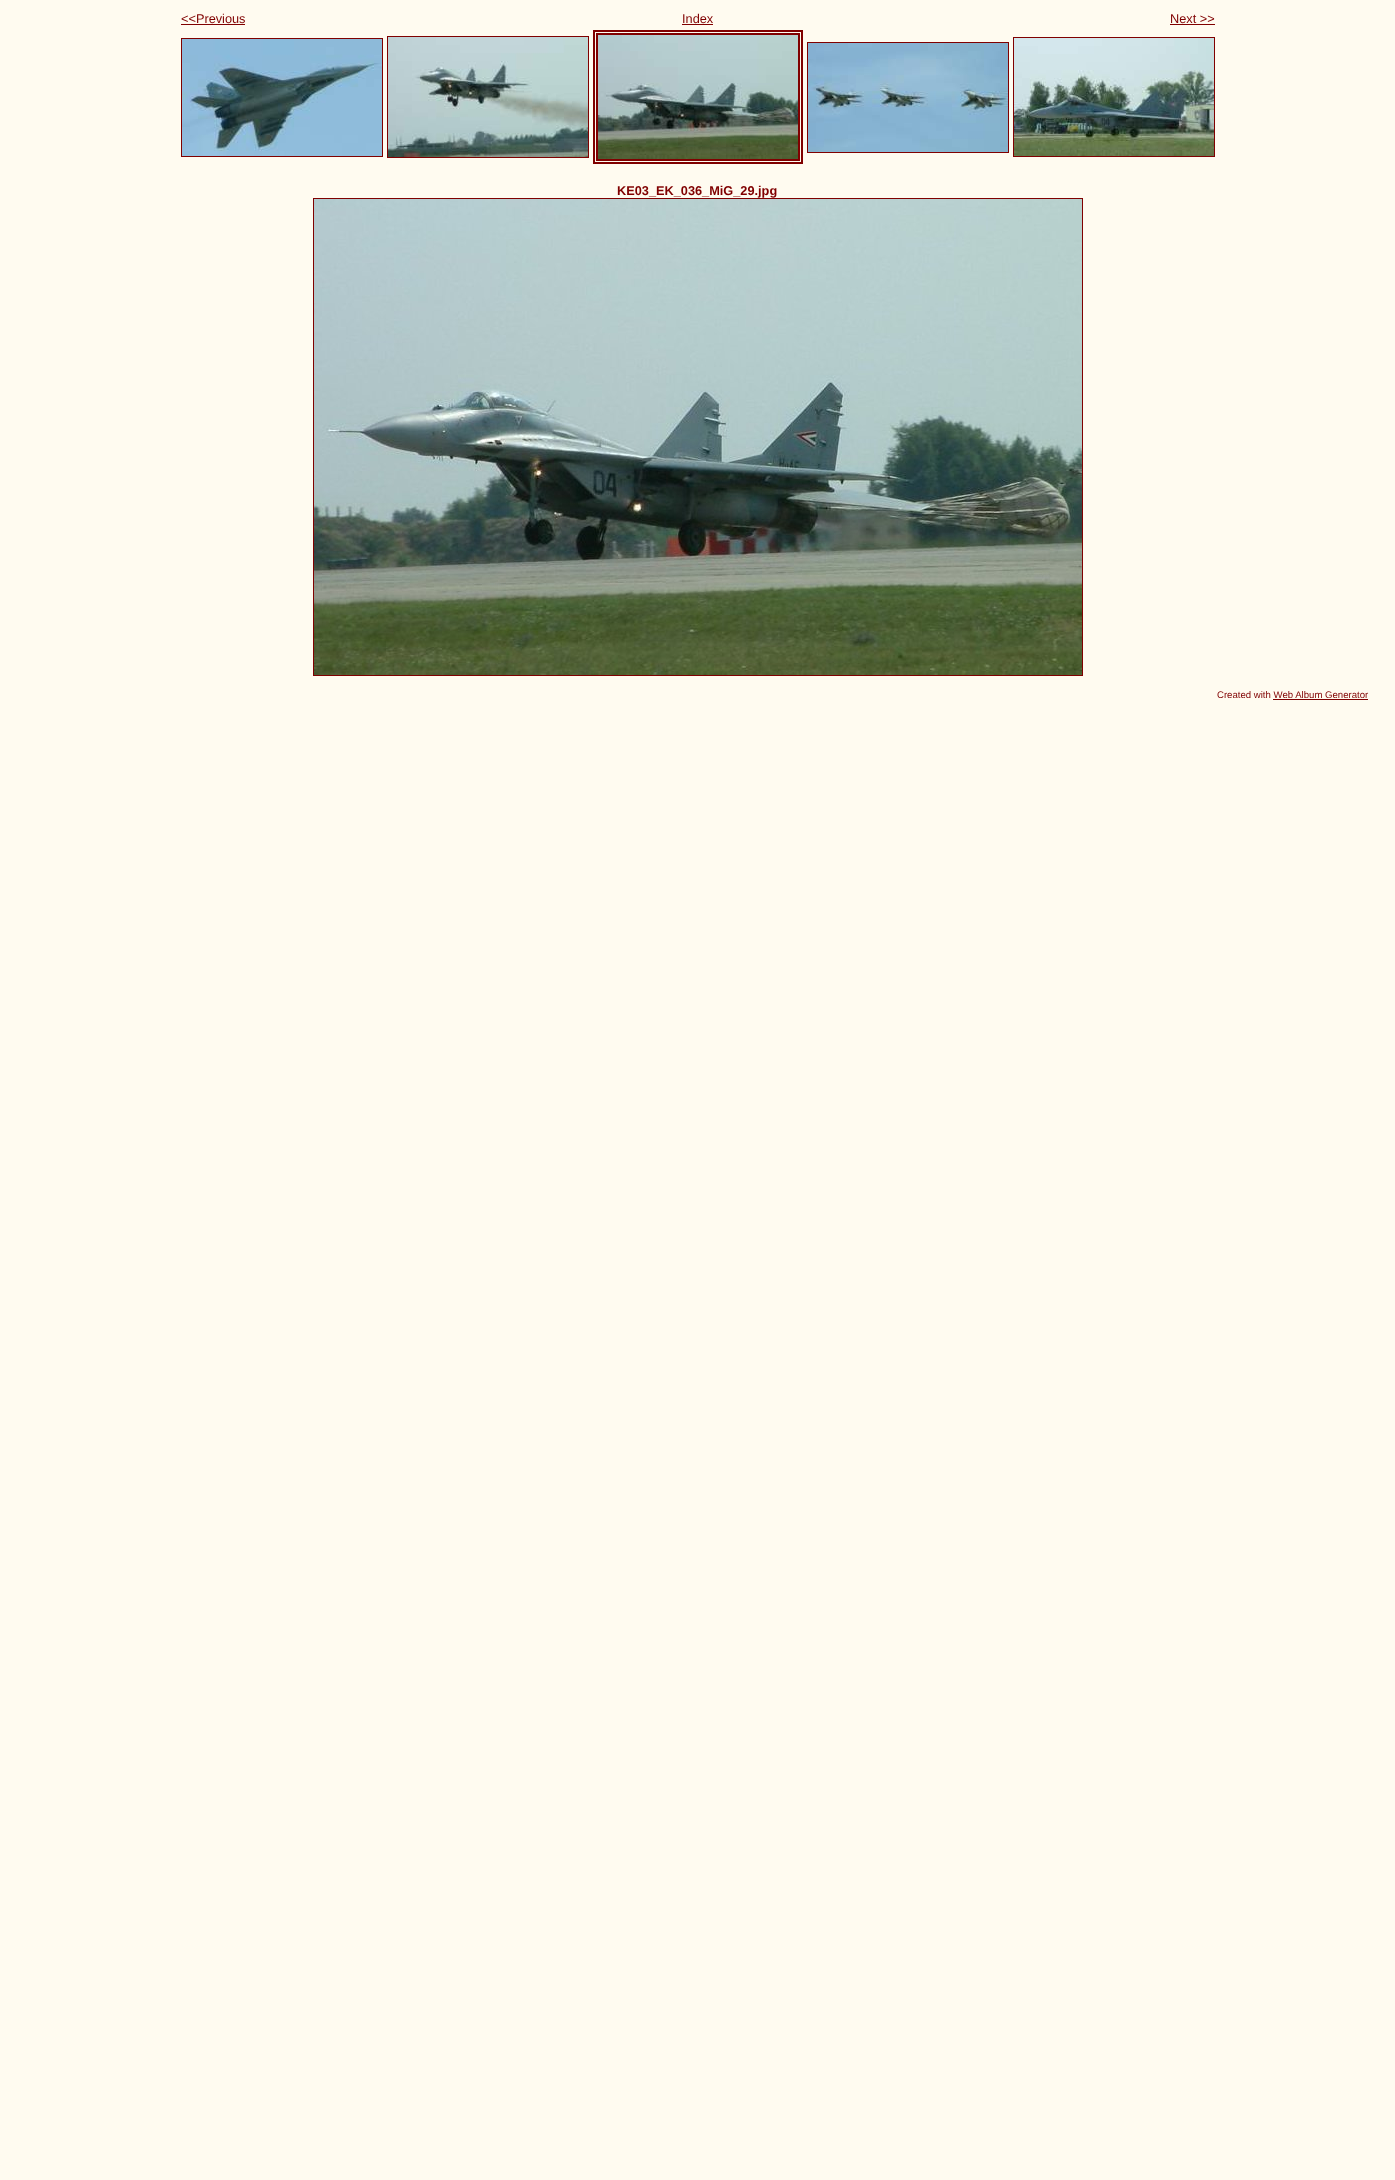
<!DOCTYPE html>
<meta charset="utf-8">
<style>body { margin: 0 } canvas { display: block }</style>
<canvas id="canvas" width="1395" height="2180"></canvas>
<script type="module">
  const canvas = document.getElementById("canvas");
  const g = canvas.getContext("2d");
  g.miterLimit = 4;
  g.fontKerning = "normal";
  function drawText(s, x, y, [font, color]) {
    g.font = font;
    g.fillStyle = color;
    g.fillText(s, x, y);
  }
  function fillBox(x, y, w, h, color) {
    g.fillStyle = color;
    g.fillRect(x, y, w, h);
  }
  async function drawPicture(src, x, y, w, h) {
    const img = new Image();
    img.src = src;
    await img.decode();
    g.drawImage(img, x, y, w, h);
  }

  const s1 = ["12.75px Liberation Sans", "#800000"];
  const s2 = ["bold 12.75px Liberation Sans", "#800000"];
  const s3 = ["9.6px Liberation Sans", "#800000"];

  fillBox(0, 0, 1395, 2180, "#FFFBF0");
  drawText("<<Previous", 181, 23, s1);
  fillBox(181, 24, 64, 1, "#800000");
  drawText("Index", 682, 23, s1);
  fillBox(682, 24, 31, 1, "#800000");
  drawText("Next >>", 1170, 23, s1);
  fillBox(1170, 24, 45, 1, "#800000");
  g.strokeStyle = "#800000";
  g.strokeRect(181.5, 38.5, 201, 118);
  await drawPicture("pic1.png", 182, 39, 200, 117);
  g.strokeRect(387.5, 36.5, 201, 121);
  await drawPicture("pic2.png", 388, 37, 200, 120);
  g.lineWidth = 2;
  g.strokeRect(594, 31, 208, 132);
  g.strokeRect(597, 34, 202, 126);
  await drawPicture("pic3.png", 598, 35, 200, 124);
  g.lineWidth = 1;
  g.strokeRect(807.5, 42.5, 201, 110);
  await drawPicture("pic4.png", 808, 43, 200, 109);
  g.strokeRect(1013.5, 37.5, 201, 119);
  await drawPicture("pic5.png", 1014, 38, 200, 118);
  drawText("KE03_EK_036_MiG_29.jpg", 617, 195, s2);
  g.strokeRect(313.5, 198.5, 769, 477);
  await drawPicture("pic6.png", 314, 199, 768, 476);
  drawText("Created with Web Album Generator", 1217, 698, s3);
  fillBox(1273, 699, 95, 1, "#800000");
</script>
